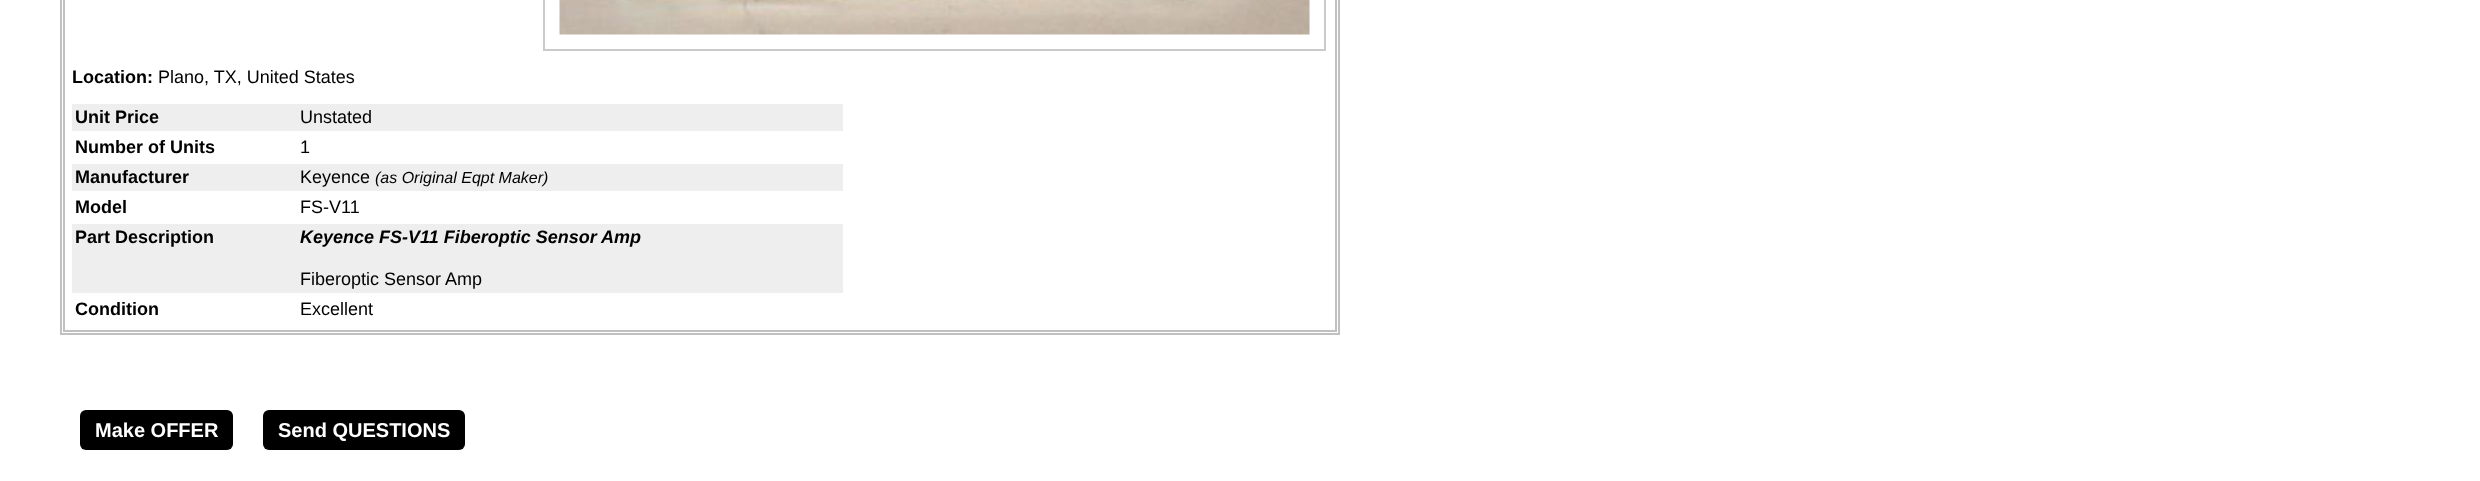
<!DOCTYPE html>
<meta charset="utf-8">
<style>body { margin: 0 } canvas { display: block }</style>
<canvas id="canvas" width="2480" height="481"></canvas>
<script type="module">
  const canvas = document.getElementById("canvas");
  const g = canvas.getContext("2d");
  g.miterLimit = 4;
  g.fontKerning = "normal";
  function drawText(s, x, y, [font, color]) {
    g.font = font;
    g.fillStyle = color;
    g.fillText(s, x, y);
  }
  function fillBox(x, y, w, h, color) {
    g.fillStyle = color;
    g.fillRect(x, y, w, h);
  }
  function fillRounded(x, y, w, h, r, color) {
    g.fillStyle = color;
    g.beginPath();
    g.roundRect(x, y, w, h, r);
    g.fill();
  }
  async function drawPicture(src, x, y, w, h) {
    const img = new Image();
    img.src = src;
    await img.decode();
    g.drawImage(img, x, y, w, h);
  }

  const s1 = ["bold 18px Liberation Sans", "#000000"];
  const s2 = ["18px Liberation Sans", "#000000"];
  const s3 = ["italic 16px Liberation Sans", "#000000"];
  const s4 = ["italic bold 18px Liberation Sans", "#000000"];
  const s5 = ["bold 20px Liberation Sans", "#FFFFFF"];

  fillBox(0, 0, 2480, 481, "#FFFFFF");
  g.strokeStyle = "#C0C0C0";
  g.lineWidth = 2;
  g.strokeRect(61, -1, 1278, 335);
  g.strokeRect(64, -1, 1272, 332);
  g.strokeStyle = "#CACACA";
  g.strokeRect(544, -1, 781, 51);
  await drawPicture("pic1.png", 559, 0, 751, 35);
  drawText("Location:", 72, 83, s1);
  drawText("Plano, TX, United States", 158, 83, s2);
  fillBox(72, 104, 771, 27, "#EEEEEE");
  drawText("Unit Price", 75, 123, s1);
  drawText("Unstated", 300, 123, s2);
  drawText("Number of Units", 75, 153, s1);
  drawText("1", 300, 153, s2);
  fillBox(72, 164, 771, 27, "#EEEEEE");
  drawText("Manufacturer", 75, 183, s1);
  drawText("Keyence", 300, 183, s2);
  drawText("(as Original Eqpt Maker)", 375, 183, s3);
  drawText("Model", 75, 213, s1);
  drawText("FS-V11", 300, 213, s2);
  fillBox(72, 224, 771, 69, "#EEEEEE");
  drawText("Part Description", 75, 243, s1);
  drawText("Keyence FS-V11 Fiberoptic Sensor Amp", 300, 243, s4);
  drawText("Fiberoptic Sensor Amp", 300, 285, s2);
  drawText("Condition", 75, 315, s1);
  drawText("Excellent", 300, 315, s2);
  fillRounded(80, 410, 153, 40, 6, "#000000");
  drawText("Make OFFER", 95, 437, s5);
  fillRounded(263, 410, 202, 40, 6, "#000000");
  drawText("Send QUESTIONS", 278, 437, s5);
</script>
